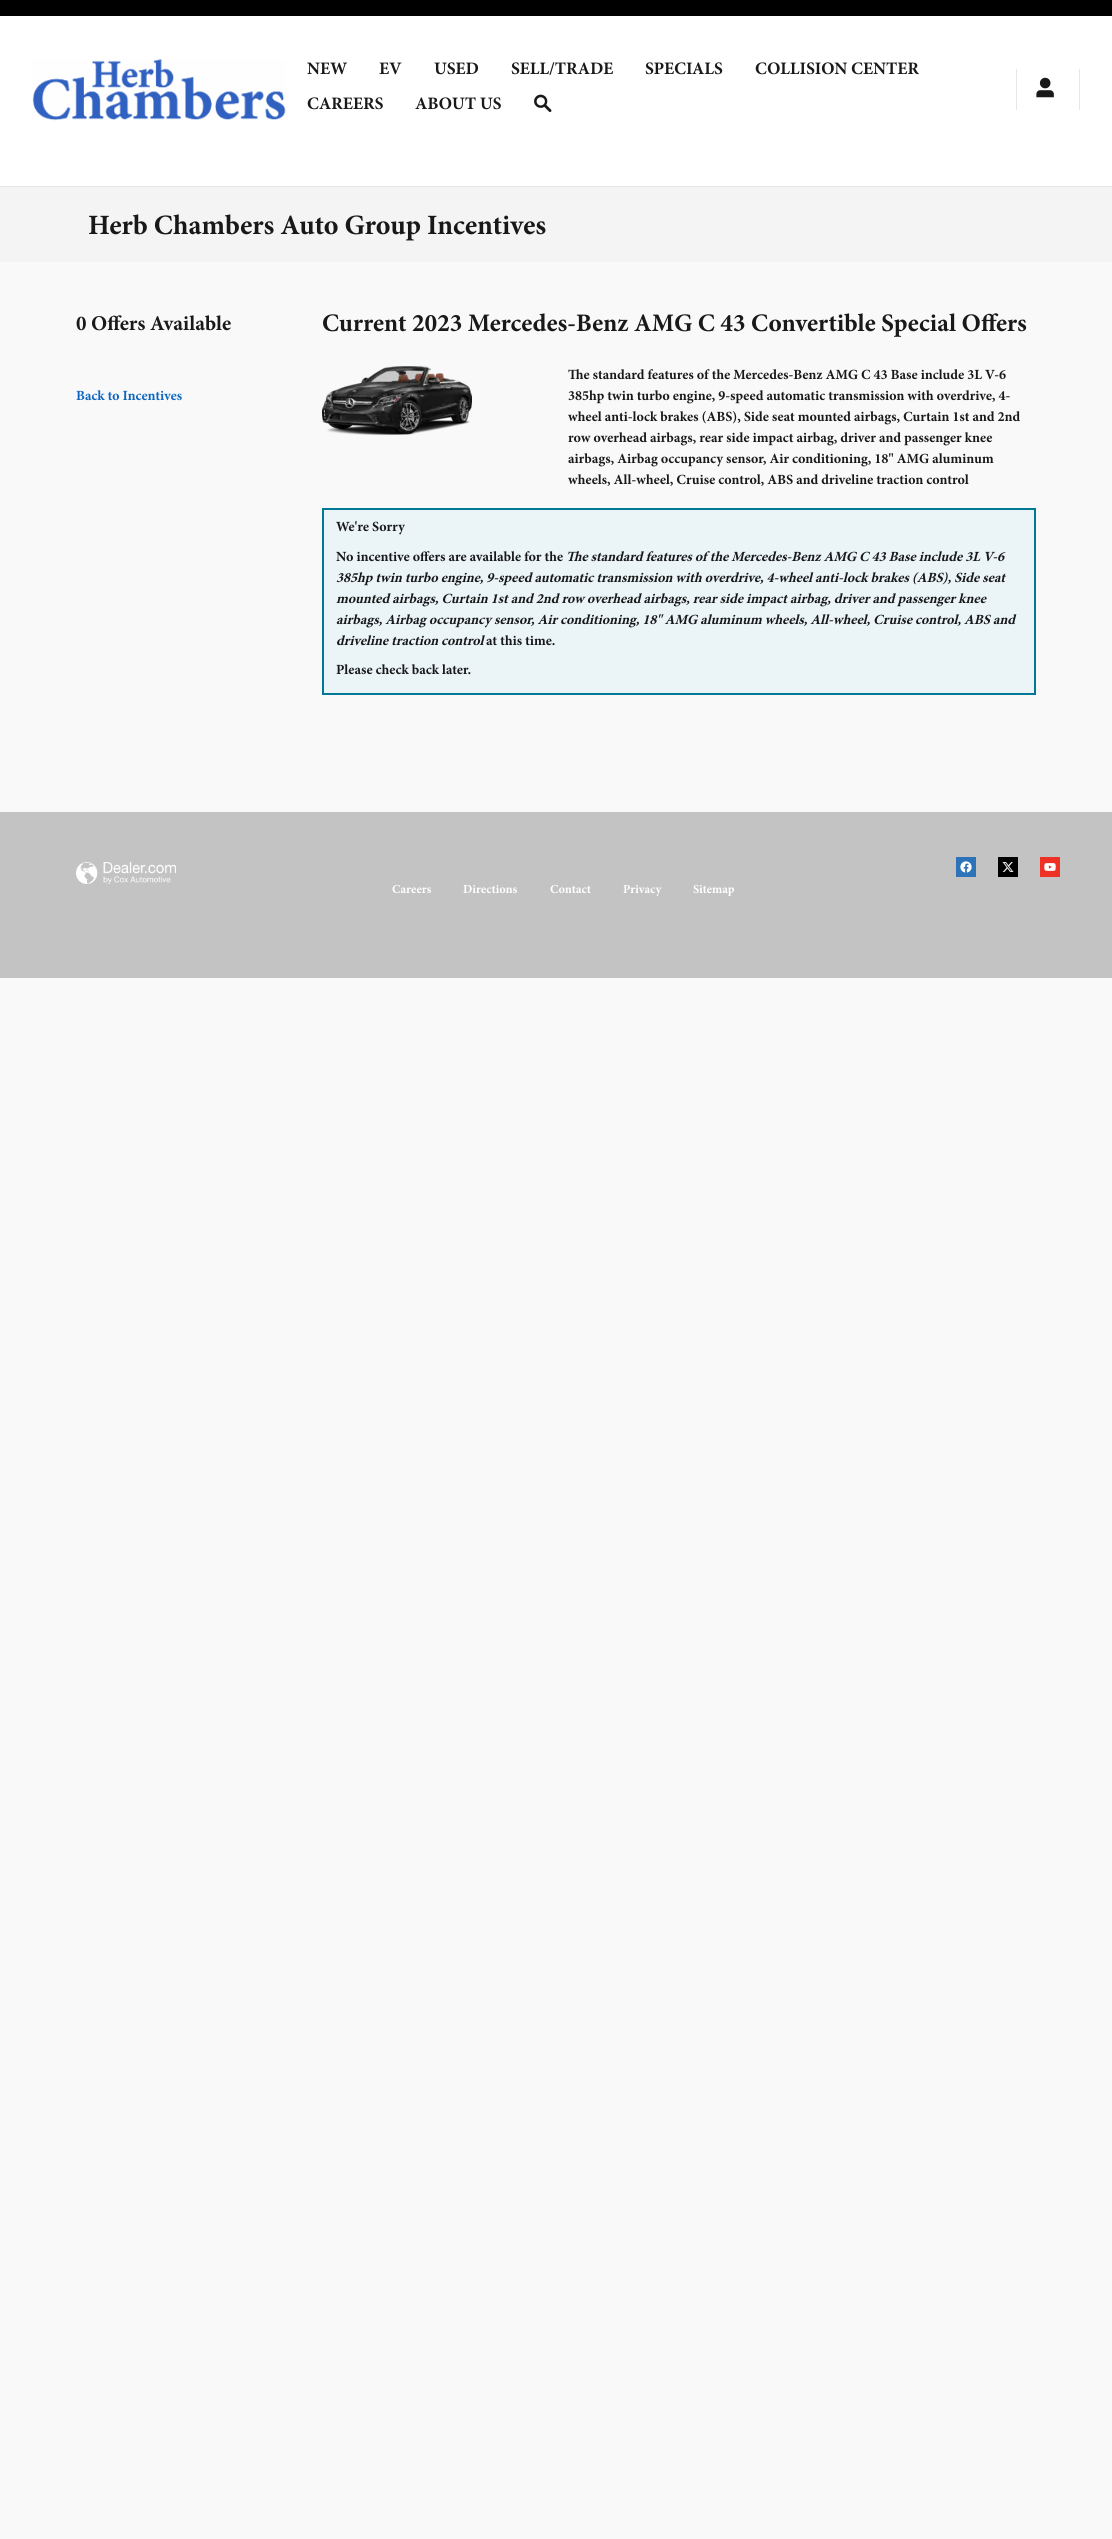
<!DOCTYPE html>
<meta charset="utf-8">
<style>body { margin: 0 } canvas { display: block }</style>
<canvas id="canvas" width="1112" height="2539"></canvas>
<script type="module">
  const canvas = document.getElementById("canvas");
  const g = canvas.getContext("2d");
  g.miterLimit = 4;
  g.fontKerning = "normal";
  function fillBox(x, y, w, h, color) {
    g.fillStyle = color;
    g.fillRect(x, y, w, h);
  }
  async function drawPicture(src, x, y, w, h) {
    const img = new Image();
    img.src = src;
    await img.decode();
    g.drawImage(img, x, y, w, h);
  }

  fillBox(0, 0, 1112, 2539, "#F9F9FA");
  fillBox(0, 16, 1112, 170, "#FFFFFF");
  fillBox(0, 186, 1112, 1, "#E6E6E6");
  fillBox(0, 0, 1112, 16, "#000000");
  await drawPicture("pic1.png", 32, 59, 254, 62);
  await drawPicture("pic2.png", 307, 62, 41, 13);
  await drawPicture("pic3.png", 379, 62, 23, 13);
  await drawPicture("pic4.png", 434, 62, 45, 13);
  await drawPicture("pic5.png", 511, 62, 103, 13);
  await drawPicture("pic6.png", 645, 62, 78, 13);
  await drawPicture("pic7.png", 755, 62, 164, 13);
  await drawPicture("pic8.png", 307, 97, 76, 13);
  await drawPicture("pic9.png", 415, 97, 86, 13);
  await drawPicture("pic10.png", 534, 94, 18, 18);
  fillBox(1016, 69, 1, 41, "#E6E6E6");
  await drawPicture("pic11.png", 1036, 77, 18, 21);
  fillBox(1079, 69, 1, 41, "#E6E6E6");
  fillBox(0, 187, 1112, 75, "#F4F4F4");
  await drawPicture("pic12.png", 89, 214, 457, 27);
  await drawPicture("pic13.png", 76, 315, 155, 16);
  await drawPicture("pic14.png", 76, 390, 106, 11);
  await drawPicture("pic15.png", 323, 313, 704, 24);
  await drawPicture("pic16.png", 322, 366, 150, 69);
  await drawPicture("pic17.png", 568, 369, 438, 11);
  await drawPicture("pic18.png", 568, 390, 442, 14);
  await drawPicture("pic19.png", 568, 411, 452, 14);
  await drawPicture("pic20.png", 568, 432, 425, 14);
  await drawPicture("pic21.png", 568, 453, 426, 14);
  await drawPicture("pic22.png", 568, 474, 401, 12);
  g.fillStyle = "#EBF4F7";
  g.beginPath();
  g.rect(323, 509, 712, 185);
  g.fill();
  g.strokeStyle = "#007896";
  g.lineWidth = 2;
  g.stroke();
  await drawPicture("pic23.png", 336, 521, 69, 14);
  await drawPicture("pic24.png", 336, 551, 227, 11);
  await drawPicture("pic25.png", 568, 551, 438, 11);
  await drawPicture("pic26.png", 336, 572, 671, 14);
  await drawPicture("pic27.png", 336, 593, 651, 14);
  await drawPicture("pic28.png", 336, 614, 681, 14);
  await drawPicture("pic29.png", 337, 635, 148, 11);
  await drawPicture("pic30.png", 486, 635, 69, 11);
  await drawPicture("pic31.png", 336, 664, 135, 11);
  fillBox(0, 812, 1112, 166, "#C3C3C3");
  await drawPicture("pic32.png", 76, 862, 100, 22);
  await drawPicture("pic33.png", 956, 857, 20, 20);
  await drawPicture("pic34.png", 998, 857, 20, 20);
  await drawPicture("pic35.png", 1040, 857, 20, 20);
  await drawPicture("pic36.png", 392, 884, 39, 10);
  await drawPicture("pic37.png", 463, 885, 54, 9);
  await drawPicture("pic38.png", 550, 884, 41, 10);
  await drawPicture("pic39.png", 623, 885, 39, 11);
  await drawPicture("pic40.png", 693, 884, 41, 12);
</script>
